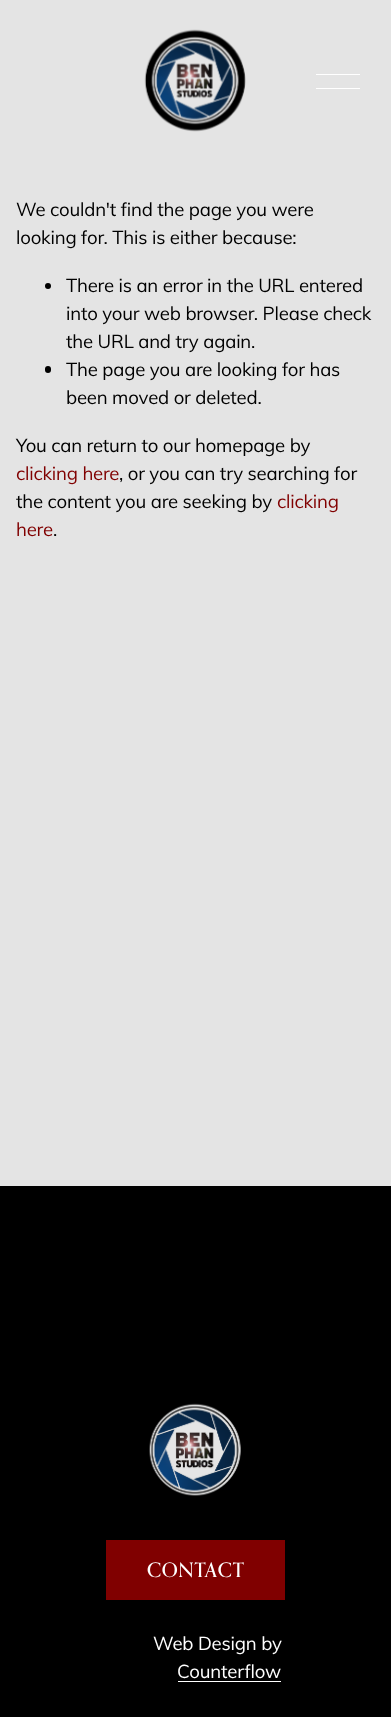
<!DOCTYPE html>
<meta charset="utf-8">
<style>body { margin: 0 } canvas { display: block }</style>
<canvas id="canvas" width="391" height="1717"></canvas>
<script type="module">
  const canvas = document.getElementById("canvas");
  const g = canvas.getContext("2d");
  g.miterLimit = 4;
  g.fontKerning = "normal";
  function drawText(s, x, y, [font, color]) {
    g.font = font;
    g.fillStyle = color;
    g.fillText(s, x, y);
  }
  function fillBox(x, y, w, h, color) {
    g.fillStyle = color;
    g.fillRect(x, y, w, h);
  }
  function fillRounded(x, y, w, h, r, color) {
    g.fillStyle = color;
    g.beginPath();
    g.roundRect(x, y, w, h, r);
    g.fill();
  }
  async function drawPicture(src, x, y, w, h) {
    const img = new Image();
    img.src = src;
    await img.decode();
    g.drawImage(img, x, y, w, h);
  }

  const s1 = ["18.6px Muli", "#000000"];
  const s2 = ["18.6px Muli", "#800000"];
  const s3 = ["500 20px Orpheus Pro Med", "#FFFFFF"];
  const s4 = ["18.6px Muli", "#FFFFFF"];

  fillBox(0, 0, 391, 1717, "#E4E4E4");
  await drawPicture("pic1.png", 144, 29, 102, 103);
  fillBox(316, 74, 44, 1, "#FFFFFF");
  fillBox(316, 88, 44, 1, "#FFFFFF");
  g.letterSpacing = "-0.2px";
  drawText("We couldn't find the page you were", 16, 216, s1);
  drawText("looking for. This is either because:", 16, 244, s1);
  g.beginPath();
  g.arc(48, 286, 3, 0, Math.PI * 2);
  g.fill();
  drawText("There is an error in the URL entered", 66, 292, s1);
  drawText("into your web browser. Please check", 66, 320, s1);
  drawText("the URL and try again.", 66, 348, s1);
  fillRounded(45, 366, 6, 7, 3, "#000000");
  drawText("The page you are looking for has", 66, 376, s1);
  drawText("been moved or deleted.", 66, 404, s1);
  drawText("You can return to our homepage by", 16, 452, s1);
  drawText("clicking here", 16, 480, s2);
  drawText(", or you can try searching for", 119, 480, s1);
  drawText("the content you are seeking by", 16, 508, s1);
  drawText("clicking", 277, 508, s2);
  drawText("here", 16, 536, s2);
  drawText(".", 53, 536, s1);
  fillBox(0, 1186, 391, 531, "#000000");
  await drawPicture("pic2.png", 149, 1403, 92, 93);
  fillBox(106, 1540, 179, 60, "#800000");
  g.letterSpacing = "0.75px";
  drawText("CONTACT", 147, 1577, s3);
  g.letterSpacing = "-0.2px";
  drawText("Web Design by", 153, 1650, s4);
  drawText("Counterflow", 177, 1678, s4);
  fillBox(178, 1681, 103, 1, "#FFFFFF");
</script>
